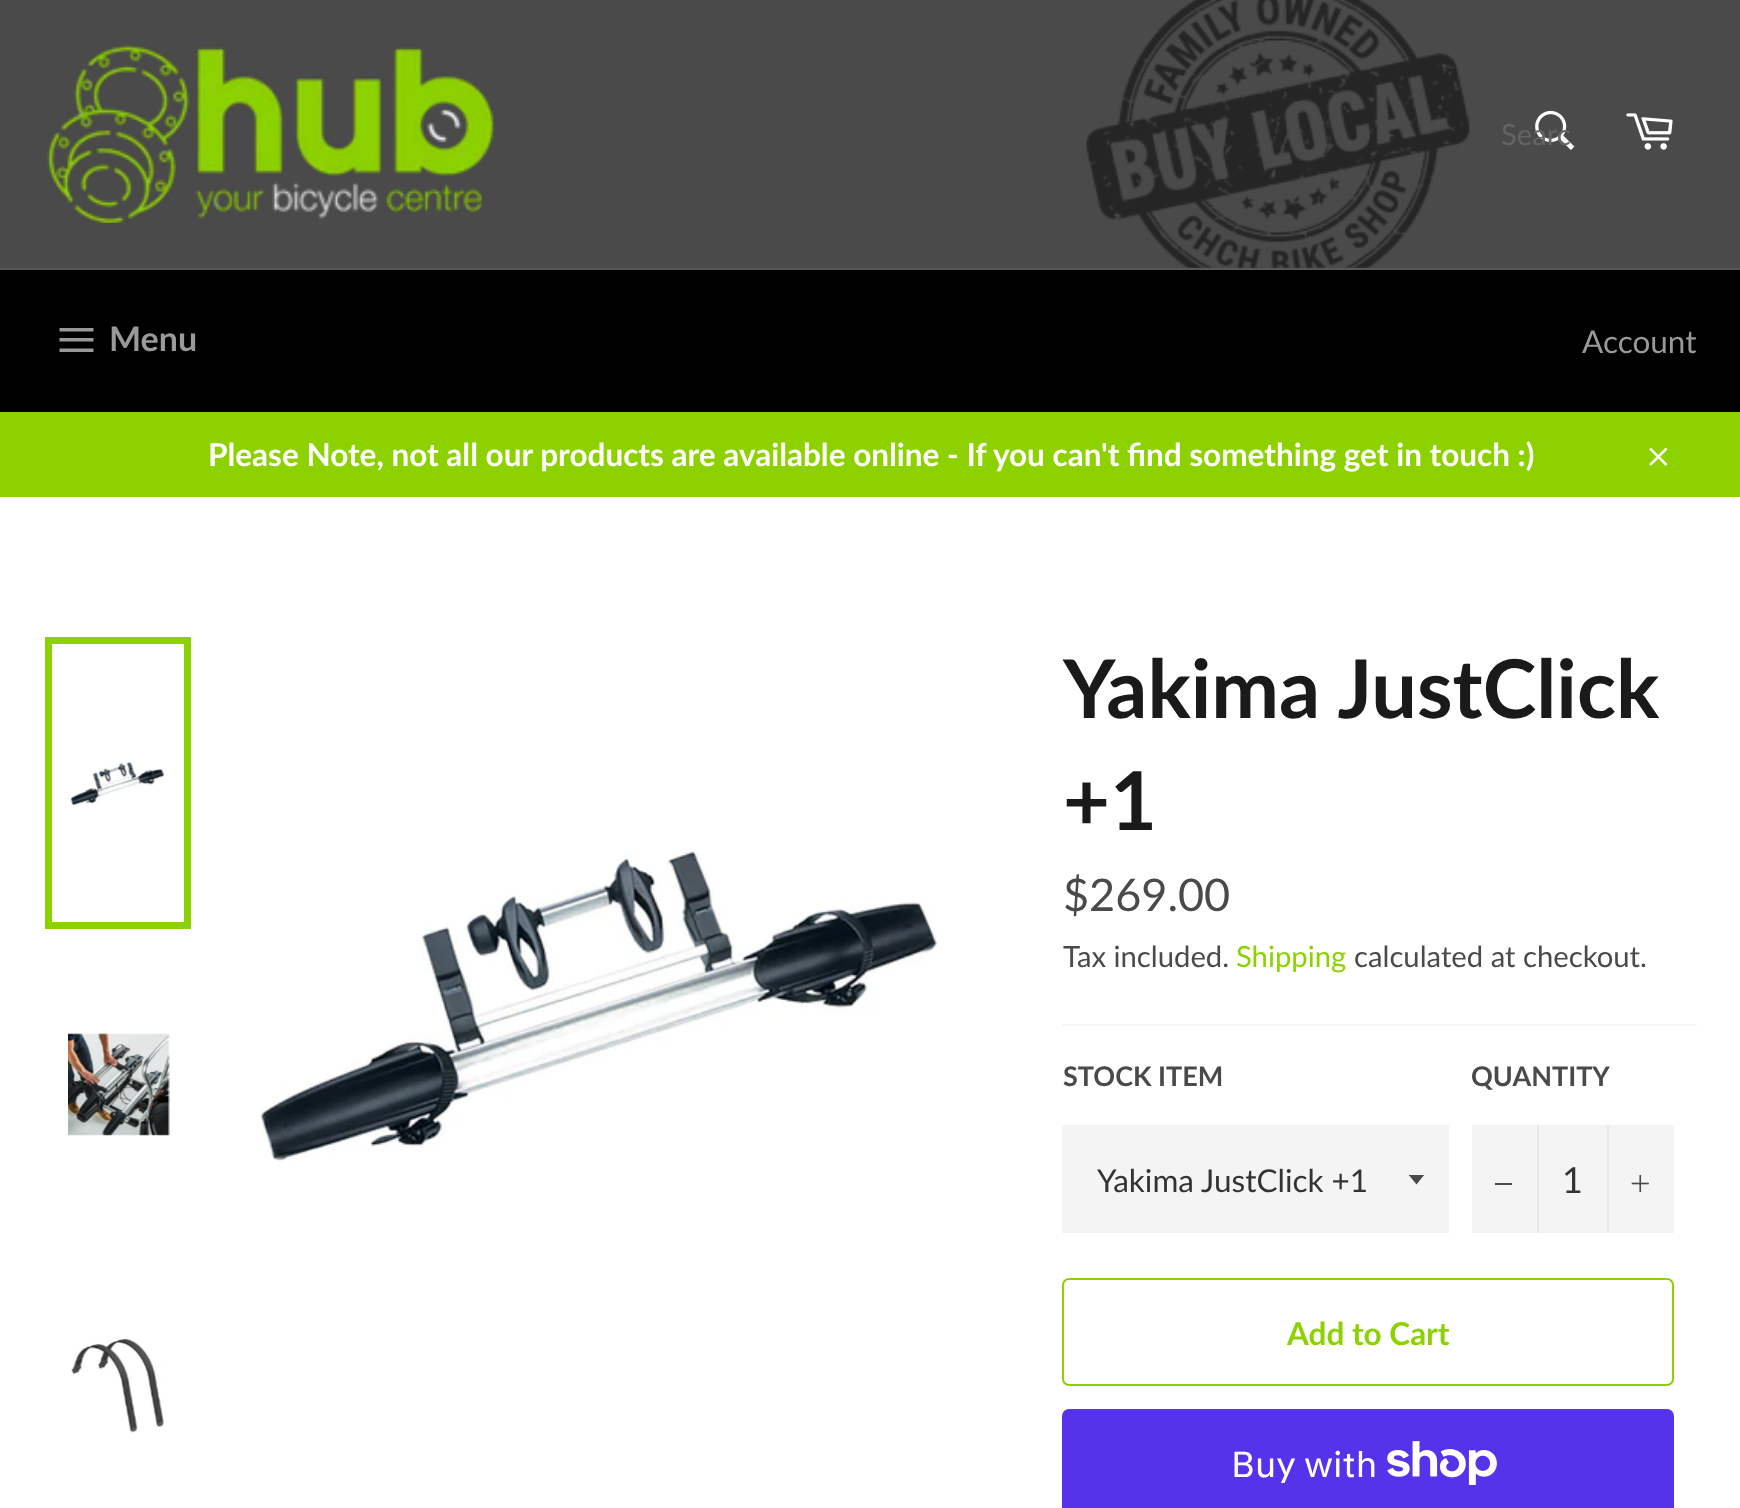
<!DOCTYPE html>
<meta charset="utf-8">
<style>body { margin: 0 } canvas { display: block }</style>
<canvas id="canvas" width="1740" height="1508"></canvas>
<script type="module">
  const canvas = document.getElementById("canvas");
  const g = canvas.getContext("2d");
  g.miterLimit = 4;
  g.fontKerning = "normal";
  function drawText(s, x, y, [font, color]) {
    g.font = font;
    g.fillStyle = color;
    g.fillText(s, x, y);
  }
  function fillBox(x, y, w, h, color) {
    g.fillStyle = color;
    g.fillRect(x, y, w, h);
  }
  function fillRounded(x, y, w, h, r, color) {
    g.fillStyle = color;
    g.beginPath();
    g.roundRect(x, y, w, h, r);
    g.fill();
  }
  async function drawPicture(src, x, y, w, h) {
    const img = new Image();
    img.src = src;
    await img.decode();
    g.drawImage(img, x, y, w, h);
  }

  const s1 = ["29.25px Lato", "#646464"];
  const s2 = ["bold 34px Lato", "#999999"];
  const s3 = ["31.5px Lato", "#999999"];
  const s4 = ["bold 31.5px Lato", "#FFFFFF"];
  const s5 = ["bold 81px Lato", "#1A1A1A"];
  const s6 = ["45px Lato", "#4A4A4A"];
  const s7 = ["29.25px Lato", "#4A4A4A"];
  const s8 = ["29.25px Lato", "#8DD200"];
  const s9 = ["bold 27px Lato", "#4A4A4A"];
  const s10 = ["31.5px Lato", "#333333"];
  const s11 = ["36px Lato", "#333333"];
  const s12 = ["bold 31.5px Lato", "#8DD200"];
  const s13 = ["36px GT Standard", "#FFFFFF"];

  fillBox(0, 0, 1740, 1508, "#4A4A4A");
  await drawPicture("pic1.png", 1086, 0, 384, 268);
  await drawPicture("pic2.png", 47, 45, 448, 178);
  await drawPicture("pic3.png", 1535, 110, 40, 40);
  drawText("Searc", 1501, 145, s1);
  await drawPicture("pic4.png", 1626, 113, 47, 37);
  fillBox(0, 268, 1740, 2, "#575757");
  fillBox(0, 270, 1740, 142, "#000000");
  g.fillStyle = "#999999";
  g.beginPath();
  g.moveTo(59.5, 338);
  g.lineTo(93.5, 338);
  g.lineTo(93.5, 341.5);
  g.lineTo(59.5, 341.5);
  g.closePath();
  g.moveTo(59.5, 328);
  g.lineTo(93.5, 328);
  g.lineTo(93.5, 331.5);
  g.lineTo(59.5, 331.5);
  g.closePath();
  g.moveTo(59.5, 348.5);
  g.lineTo(93.5, 348.5);
  g.lineTo(93.5, 352);
  g.lineTo(59.5, 352);
  g.closePath();
  g.fill();
  drawText("Menu", 109, 351, s2);
  drawText("Account", 1582, 353, s3);
  fillBox(0, 412, 1740, 85, "#8DD200");
  drawText("Please Note, not all our products are available online - If you can't find something get in touch :)", 208, 466, s4);
  await drawPicture("pic5.png", 1649, 447, 19, 19);
  fillBox(0, 497, 1740, 1011, "#FFFFFF");
  await drawPicture("pic6.png", 70, 762, 95, 44);
  g.strokeStyle = "#8DD200";
  g.lineWidth = 7;
  g.strokeRect(48.5, 640.5, 139, 285);
  await drawPicture("pic7.png", 68, 1033, 102, 103);
  await drawPicture("pic8.png", 71, 1338, 93, 95);
  await drawPicture("pic9.png", 260, 849, 678, 313);
  drawText("Yakima JustClick", 1063, 718, s5);
  drawText("+1", 1063, 830, s5);
  drawText("$269.00", 1063, 911, s6);
  drawText("Tax included.", 1063, 967, s7);
  drawText("Shipping", 1236, 967, s8);
  drawText("calculated at checkout.", 1354, 967, s7);
  fillBox(1062, 1024, 635, 2, "#F7F7F7");
  drawText("STOCK ITEM", 1063, 1086, s9);
  fillBox(1062, 1125, 387, 108, "#F4F4F4");
  g.save();
  g.beginPath();
  g.rect(1409, 1175, 18, 11);
  g.clip();
  g.fillStyle = "#4A4A4A";
  g.beginPath();
  g.moveTo(1408.5, 1174.5);
  g.lineTo(1416.5, 1184.5);
  g.lineTo(1424.5, 1174.5);
  g.closePath();
  g.fill();
  g.restore();
  drawText("Yakima JustClick +1", 1097, 1192, s10);
  drawText("QUANTITY", 1471, 1086, s9);
  fillBox(1472, 1125, 202, 108, "#F4F4F4");
  fillBox(1537, 1125, 2, 108, "#E7E7E7");
  fillBox(1495, 1183, 17, 2, "#4A4A4A");
  drawText("1", 1562, 1193, s11);
  fillBox(1607, 1125, 2, 108, "#E7E7E7");
  await drawPicture("pic10.png", 1631, 1175, 18, 18);
  g.beginPath();
  g.roundRect(1063, 1279, 610, 106, 6);
  g.lineWidth = 2;
  g.stroke();
  drawText("Add to Cart", 1287, 1345, s12);
  fillRounded(1062, 1409, 612, 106, 7, "#5433EB");
  drawText("Buy with", 1231, 1477, s13);
  await drawPicture("pic11.png", 1387, 1441, 110, 44);
</script>
